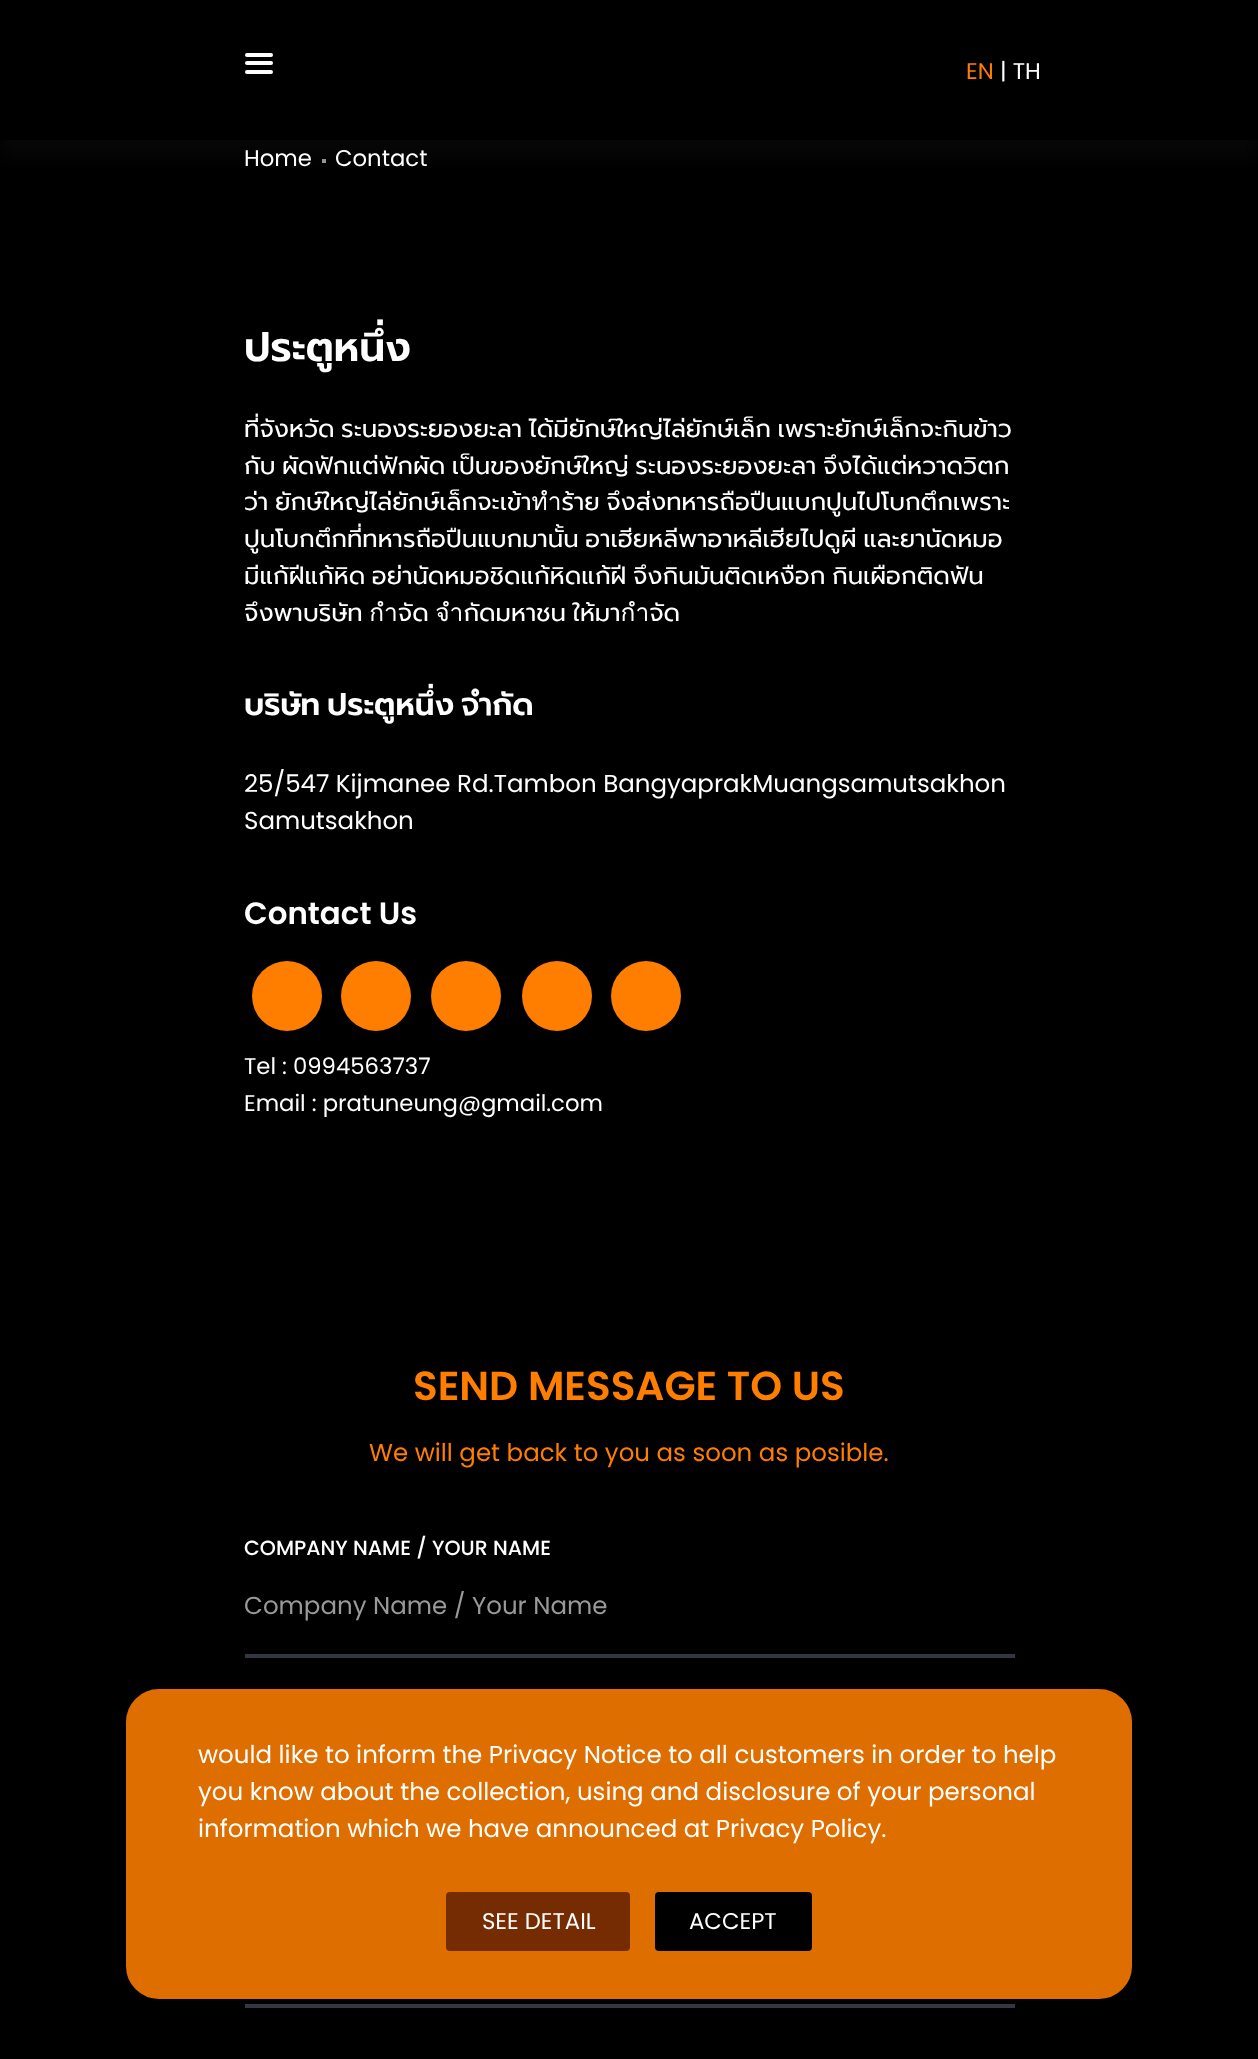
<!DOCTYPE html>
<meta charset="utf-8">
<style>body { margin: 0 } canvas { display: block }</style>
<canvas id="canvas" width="1258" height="2059"></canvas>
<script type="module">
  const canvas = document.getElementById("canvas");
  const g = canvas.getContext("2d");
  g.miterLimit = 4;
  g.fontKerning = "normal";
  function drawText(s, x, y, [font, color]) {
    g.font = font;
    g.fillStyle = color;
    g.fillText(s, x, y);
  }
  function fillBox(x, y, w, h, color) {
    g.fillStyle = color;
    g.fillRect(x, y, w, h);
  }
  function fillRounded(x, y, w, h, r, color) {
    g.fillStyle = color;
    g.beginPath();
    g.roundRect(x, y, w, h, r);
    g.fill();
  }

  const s1 = ["22.75px Poppins", "#FF7E00"];
  const s2 = ["22.75px Poppins", "#FFFFFF"];
  const s3 = ["600 40.6px Prompt", "#FFFFFF"];
  const s4 = ["24.5px Prompt", "#FFFFFF"];
  const s5 = ["600 30.9px Prompt", "#FFFFFF"];
  const s6 = ["24.5px Poppins", "#FFFFFF"];
  const s7 = ["600 30.9px Poppins", "#FFFFFF"];
  const s8 = ["600 40.6px Poppins", "#FF7E00"];
  const s9 = ["24.5px Poppins", "#FF7E00"];
  const s10 = ["500 20.5px Poppins", "#FFFFFF"];
  const s11 = ["24.5px Poppins", "#999999"];

  fillBox(0, 0, 1258, 2059, "#000000");
  fillBox(322, 159, 4, 4, "#9D9D9D");
  g.save();
  g.beginPath();
  g.rect(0, 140, 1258, 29);
  g.clip();
  g.fillStyle = "rgba(32, 32, 32, 0.19)";
  g.filter = "blur(9px)";
  g.beginPath();
  g.rect(0, 18, 1258, 140);
  g.fill();
  g.filter = "none";
  g.restore();
  fillRounded(245, 61, 28, 4, 2, "#FFFFFF");
  fillRounded(245, 53, 28, 4, 2, "#FFFFFF");
  fillRounded(245, 70, 28, 4, 2, "#FFFFFF");
  drawText("EN", 966, 79, s1);
  drawText("| TH", 1000, 79, s2);
  drawText("Home", 244, 166, s2);
  drawText("Contact", 335, 166, s2);
  drawText("ประตูหนึ่ง", 244, 361, s3);
  g.wordSpacing = "-2.5px";
  drawText("ที่จังหวัด ระนองระยองยะลา ได้มียักษ์ใหญ่ไล่ยักษ์เล็ก เพราะยักษ์เล็กจะกินข้าว", 244, 437, s4);
  drawText("กับ ผัดฟักแต่ฟักผัด เป็นของยักษ์ใหญ่ ระนองระยองยะลา จึงได้แต่หวาดวิตก", 244, 474, s4);
  drawText("ว่า ยักษ์ใหญ่ไล่ยักษ์เล็กจะเข้าทำร้าย จึงส่งทหารถือปืนแบกปูนไปโบกตึกเพราะ", 244, 510, s4);
  drawText("ปูนโบกตึกที่ทหารถือปืนแบกมานั้น อาเฮียหลีพาอาหลีเฮียไปดูผี และยานัดหมอ", 244, 547, s4);
  drawText("มีแก้ฝีแก้หิด อย่านัดหมอชิดแก้หิดแก้ฝี จึงกินมันติดเหงือก กินเผือกติดฟัน", 244, 584, s4);
  drawText("จึงพาบริษัท กำจัด จำกัดมหาชน ให้มากำจัด", 244, 621, s4);
  g.wordSpacing = "-4px";
  drawText("บริษัท ประตูหนึ่ง จำกัด", 244, 715, s5);
  g.wordSpacing = "0px";
  drawText("25/547 Kijmanee Rd.Tambon BangyaprakMuangsamutsakhon", 244, 792, s6);
  drawText("Samutsakhon", 244, 829, s6);
  drawText("Contact Us", 244, 924, s7);
  g.fillStyle = "#FF7E00";
  g.beginPath();
  g.arc(287, 996, 35, 0, Math.PI * 2);
  g.fill();
  g.beginPath();
  g.arc(376, 996, 35, 0, Math.PI * 2);
  g.fill();
  g.beginPath();
  g.arc(466, 996, 35, 0, Math.PI * 2);
  g.fill();
  g.beginPath();
  g.arc(557, 996, 35, 0, Math.PI * 2);
  g.fill();
  g.beginPath();
  g.arc(646, 996, 35, 0, Math.PI * 2);
  g.fill();
  drawText("Tel : 0994563737", 244, 1074, s2);
  drawText("Email : pratuneung@gmail.com", 244, 1111, s2);
  drawText("SEND MESSAGE TO US", 413, 1400, s8);
  drawText("We will get back to you as soon as posible.", 369, 1461, s9);
  drawText("COMPANY NAME / YOUR NAME", 244, 1555, s10);
  fillBox(245, 1654, 770, 4, "#323742");
  drawText("Company Name / Your Name", 244, 1614, s11);
  fillBox(245, 2004, 770, 4, "#323742");
  g.fillStyle = "#DE6E00";
  g.beginPath();
  g.roundRect(128, 1691, 1002, 306, 31);
  g.fill();
  g.strokeStyle = "#DE6E01";
  g.lineWidth = 4;
  g.stroke();
  drawText("would like to inform the Privacy Notice to all customers in order to help", 198, 1763, s6);
  drawText("you know about the collection, using and disclosure of your personal", 198, 1800, s6);
  drawText("information which we have announced at Privacy Policy.", 198, 1837, s6);
  fillRounded(446, 1892, 184, 59, 4, "#752C03");
  drawText("SEE DETAIL", 482, 1929, s2);
  fillRounded(655, 1892, 157, 59, 4, "#000000");
  drawText("ACCEPT", 689, 1929, s2);
</script>
